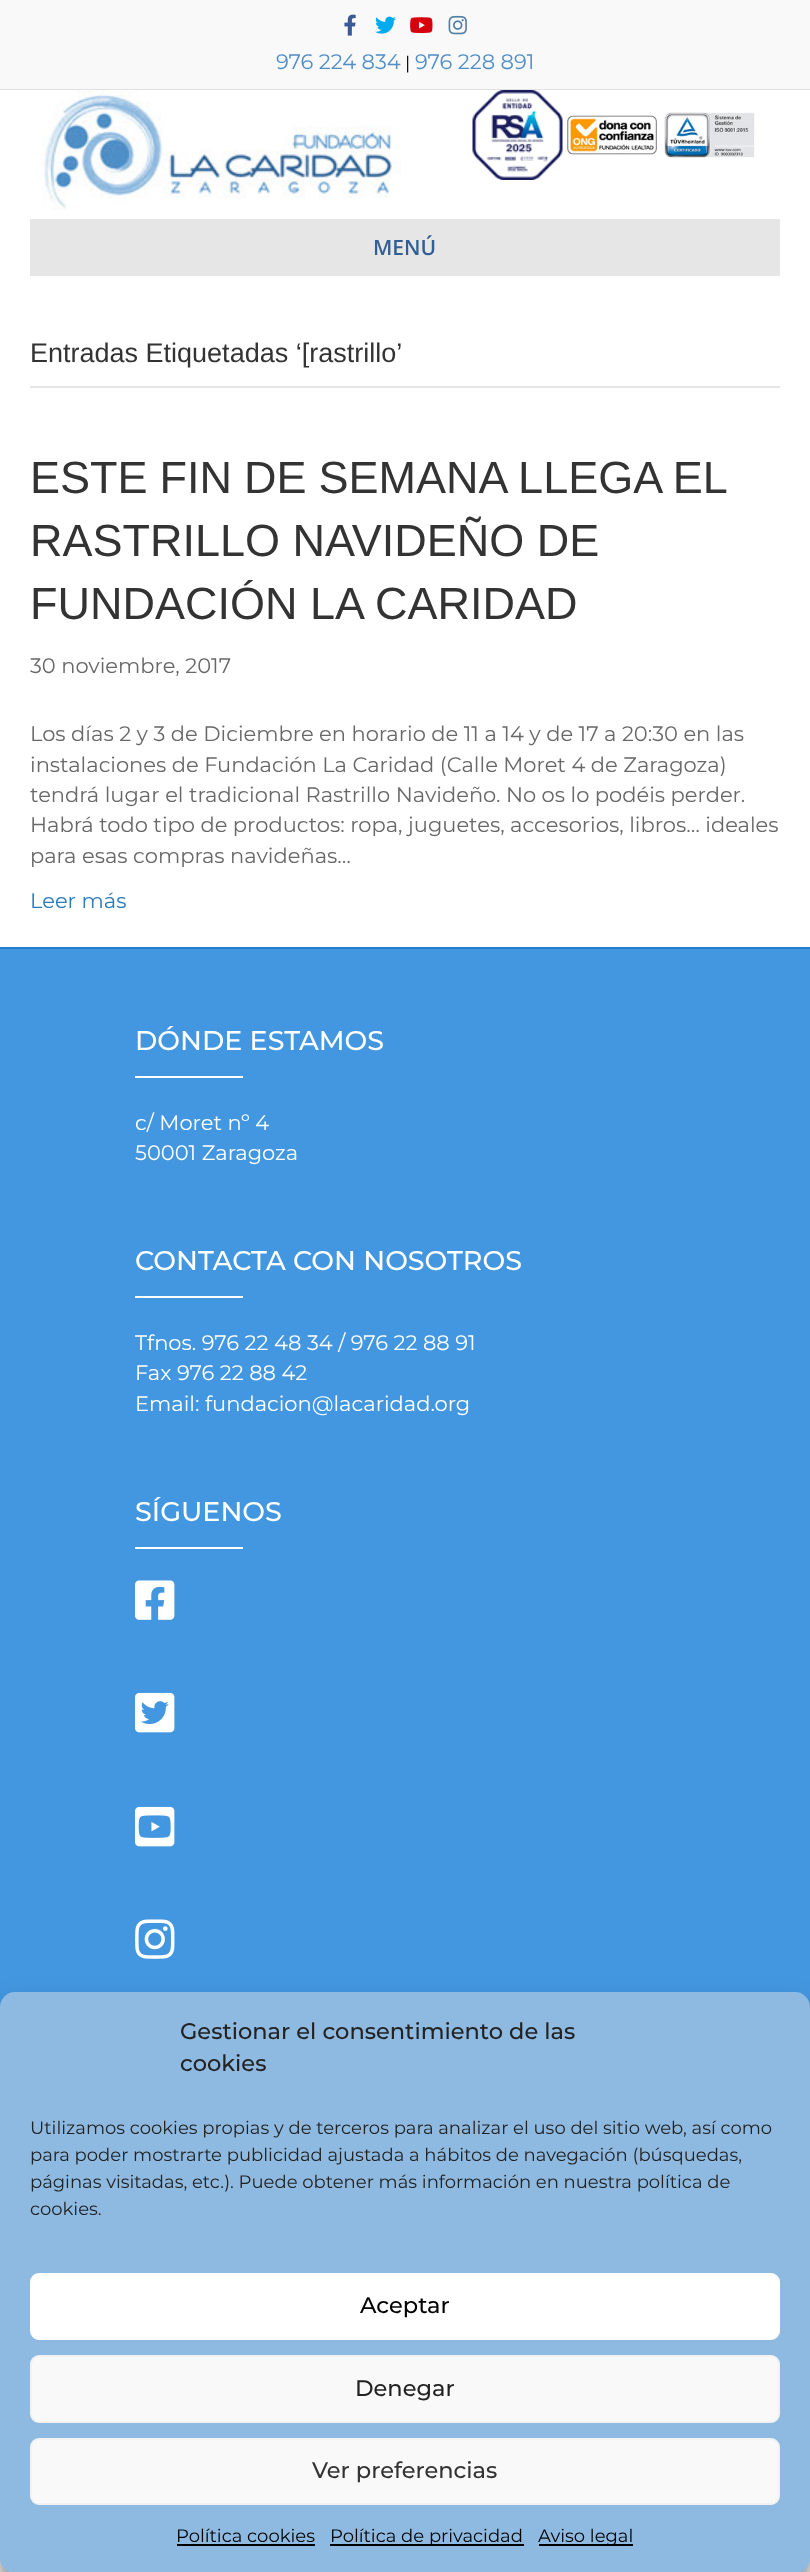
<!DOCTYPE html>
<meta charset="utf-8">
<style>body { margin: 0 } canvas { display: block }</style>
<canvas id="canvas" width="810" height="2572"></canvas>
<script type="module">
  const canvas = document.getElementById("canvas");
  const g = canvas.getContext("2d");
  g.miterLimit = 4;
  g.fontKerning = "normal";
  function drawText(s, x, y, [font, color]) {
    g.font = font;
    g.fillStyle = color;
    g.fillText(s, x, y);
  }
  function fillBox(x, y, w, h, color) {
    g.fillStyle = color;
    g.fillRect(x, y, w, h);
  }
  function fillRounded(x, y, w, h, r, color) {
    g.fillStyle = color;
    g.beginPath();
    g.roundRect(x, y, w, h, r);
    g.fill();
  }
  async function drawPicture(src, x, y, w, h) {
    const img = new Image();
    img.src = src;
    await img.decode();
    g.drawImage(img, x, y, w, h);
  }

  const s1 = ["21px Montserrat", "#508EC7"];
  const s2 = ["18px Montserrat", "#000000"];
  const s3 = ["600 21px Open Sans", "#315E95"];
  const s4 = ["27px Liberation Sans", "#333333"];
  const s5 = ["45px Liberation Sans", "#333333"];
  const s6 = ["21px Montserrat", "#686868"];
  const s7 = ["21px Montserrat", "#2B7BB9"];
  const s8 = ["100 27px Montserrat", "#FFFFFF"];
  const s9 = ["21px Montserrat", "#FFFFFF"];
  const s10 = ["100 22.5px Montserrat", "#222222"];
  const s11 = ["18px Montserrat", "#222222"];
  const s12 = ["100 22.5px Montserrat", "#000000"];
  const s13 = ["100 22.5px Montserrat", "#333333"];

  fillBox(0, 0, 810, 2572, "#F2F2F2");
  fillBox(0, 0, 810, 89, "#F9F9F9");
  fillBox(0, 89, 810, 1, "#E0E0E0");
  await drawPicture("pic1.png", 344, 14, 12, 22);
  await drawPicture("pic2.png", 375, 16, 21, 18);
  await drawPicture("pic3.png", 410, 17, 23, 16);
  await drawPicture("pic4.png", 448, 15, 19, 20);
  drawText("976 224 834", 276, 69, s1);
  drawText("|", 405, 69, s2);
  drawText("976 228 891", 415, 69, s1);
  fillBox(0, 90, 810, 857, "#FFFFFF");
  await drawPicture("pic5.png", 42, 90, 360, 120);
  await drawPicture("pic6.png", 472, 90, 91, 90);
  await drawPicture("pic7.png", 567, 115, 90, 40);
  await drawPicture("pic8.png", 664, 112, 91, 46);
  fillBox(30, 219, 750, 57, "#E6E6E6");
  drawText("MENÚ", 373, 255, s3);
  fillBox(30, 386, 750, 2, "#E6E6E6");
  drawText("Entradas Etiquetadas ‘[rastrillo’", 30, 362, s4);
  g.wordSpacing = "-0.5px";
  drawText("ESTE FIN DE SEMANA LLEGA EL", 30, 493, s5);
  g.wordSpacing = "0px";
  drawText("RASTRILLO NAVIDEÑO DE", 30, 556, s5);
  drawText("FUNDACIÓN LA CARIDAD", 30, 619, s5);
  drawText("30 noviembre, 2017", 30, 673, s6);
  drawText("Los días 2 y 3 de Diciembre en horario de 11 a 14 y de 17 a 20:30 en las", 30, 741, s6);
  drawText("instalaciones de Fundación La Caridad (Calle Moret 4 de Zaragoza)", 30, 772, s6);
  drawText("tendrá lugar el tradicional Rastrillo Navideño. No os lo podéis perder.", 30, 802, s6);
  drawText("Habrá todo tipo de productos: ropa, juguetes, accesorios, libros… ideales", 30, 832, s6);
  drawText("para esas compras navideñas…", 30, 863, s6);
  drawText("Leer más", 30, 908, s7);
  fillBox(0, 949, 810, 1058, "#4397E0");
  fillBox(0, 947, 810, 2, "#227ECE");
  drawText("DÓNDE ESTAMOS", 135, 1050, s8);
  fillBox(135, 1076, 108, 2, "#FFFFFF");
  drawText("c/ Moret nº 4", 135, 1130, s9);
  drawText("50001 Zaragoza", 135, 1160, s9);
  drawText("CONTACTA CON NOSOTROS", 135, 1270, s8);
  fillBox(135, 1296, 108, 2, "#FFFFFF");
  drawText("Tfnos. 976 22 48 34 / 976 22 88 91", 135, 1350, s9);
  drawText("Fax 976 22 88 42", 135, 1380, s9);
  drawText("Email: fundacion@lacaridad.org", 135, 1411, s9);
  drawText("SÍGUENOS", 135, 1521, s8);
  fillBox(135, 1547, 108, 2, "#FFFFFF");
  await drawPicture("pic9.png", 135, 1580, 40, 40);
  await drawPicture("pic10.png", 135, 1692, 40, 41);
  await drawPicture("pic11.png", 135, 1806, 40, 41);
  await drawPicture("pic12.png", 135, 1919, 40, 40);
  g.fillStyle = "rgba(0, 0, 0, 0.23)";
  g.filter = "blur(4.5px)";
  g.beginPath();
  g.roundRect(0, 2001, 810, 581, 15);
  g.fill();
  g.filter = "none";
  g.fillStyle = "rgba(0, 0, 0, 0.19)";
  g.filter = "blur(15px)";
  g.beginPath();
  g.roundRect(0, 2007, 810, 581, 15);
  g.fill();
  g.filter = "none";
  g.fillStyle = "#808080";
  g.filter = "blur(4px)";
  g.beginPath();
  g.roundRect(705, 2462, 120, 90, 3);
  g.fill();
  g.filter = "none";
  fillRounded(0, 1992, 810, 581, 15, "#8EBAE1");
  drawText("Gestionar el consentimiento de las", 180, 2039, s10);
  drawText("cookies", 180, 2071, s10);
  drawText("Utilizamos cookies propias y de terceros para analizar el uso del sitio web, así como", 30, 2134, s11);
  drawText("para poder mostrarte publicidad ajustada a hábitos de navegación (búsquedas,", 30, 2161, s11);
  drawText("páginas visitadas, etc.). Puede obtener más información en nuestra política de", 30, 2188, s11);
  drawText("cookies.", 30, 2215, s11);
  g.fillStyle = "#FFFFFF";
  g.beginPath();
  g.roundRect(31, 2274, 748, 65, 8);
  g.fill();
  g.strokeStyle = "#FFFFFF";
  g.lineWidth = 2;
  g.stroke();
  drawText("Aceptar", 360, 2313, s12);
  g.fillStyle = "#F9F9F9";
  g.beginPath();
  g.roundRect(31, 2356, 748, 66, 8);
  g.fill();
  g.strokeStyle = "#F2F2F2";
  g.stroke();
  drawText("Denegar", 355, 2396, s10);
  g.fillStyle = "#F9F9F9";
  g.beginPath();
  g.roundRect(31, 2439, 748, 65, 8);
  g.fill();
  g.stroke();
  drawText("Ver preferencias", 312, 2478, s13);
  drawText("Política cookies", 176, 2542, s2);
  fillBox(177, 2544, 138, 2, "#000000");
  fillBox(330, 2544, 194, 2, "#000000");
  drawText("Política de privacidad", 330, 2542, s2);
  fillBox(539, 2544, 94, 2, "#000000");
  drawText("Aviso legal", 538, 2542, s2);
</script>
